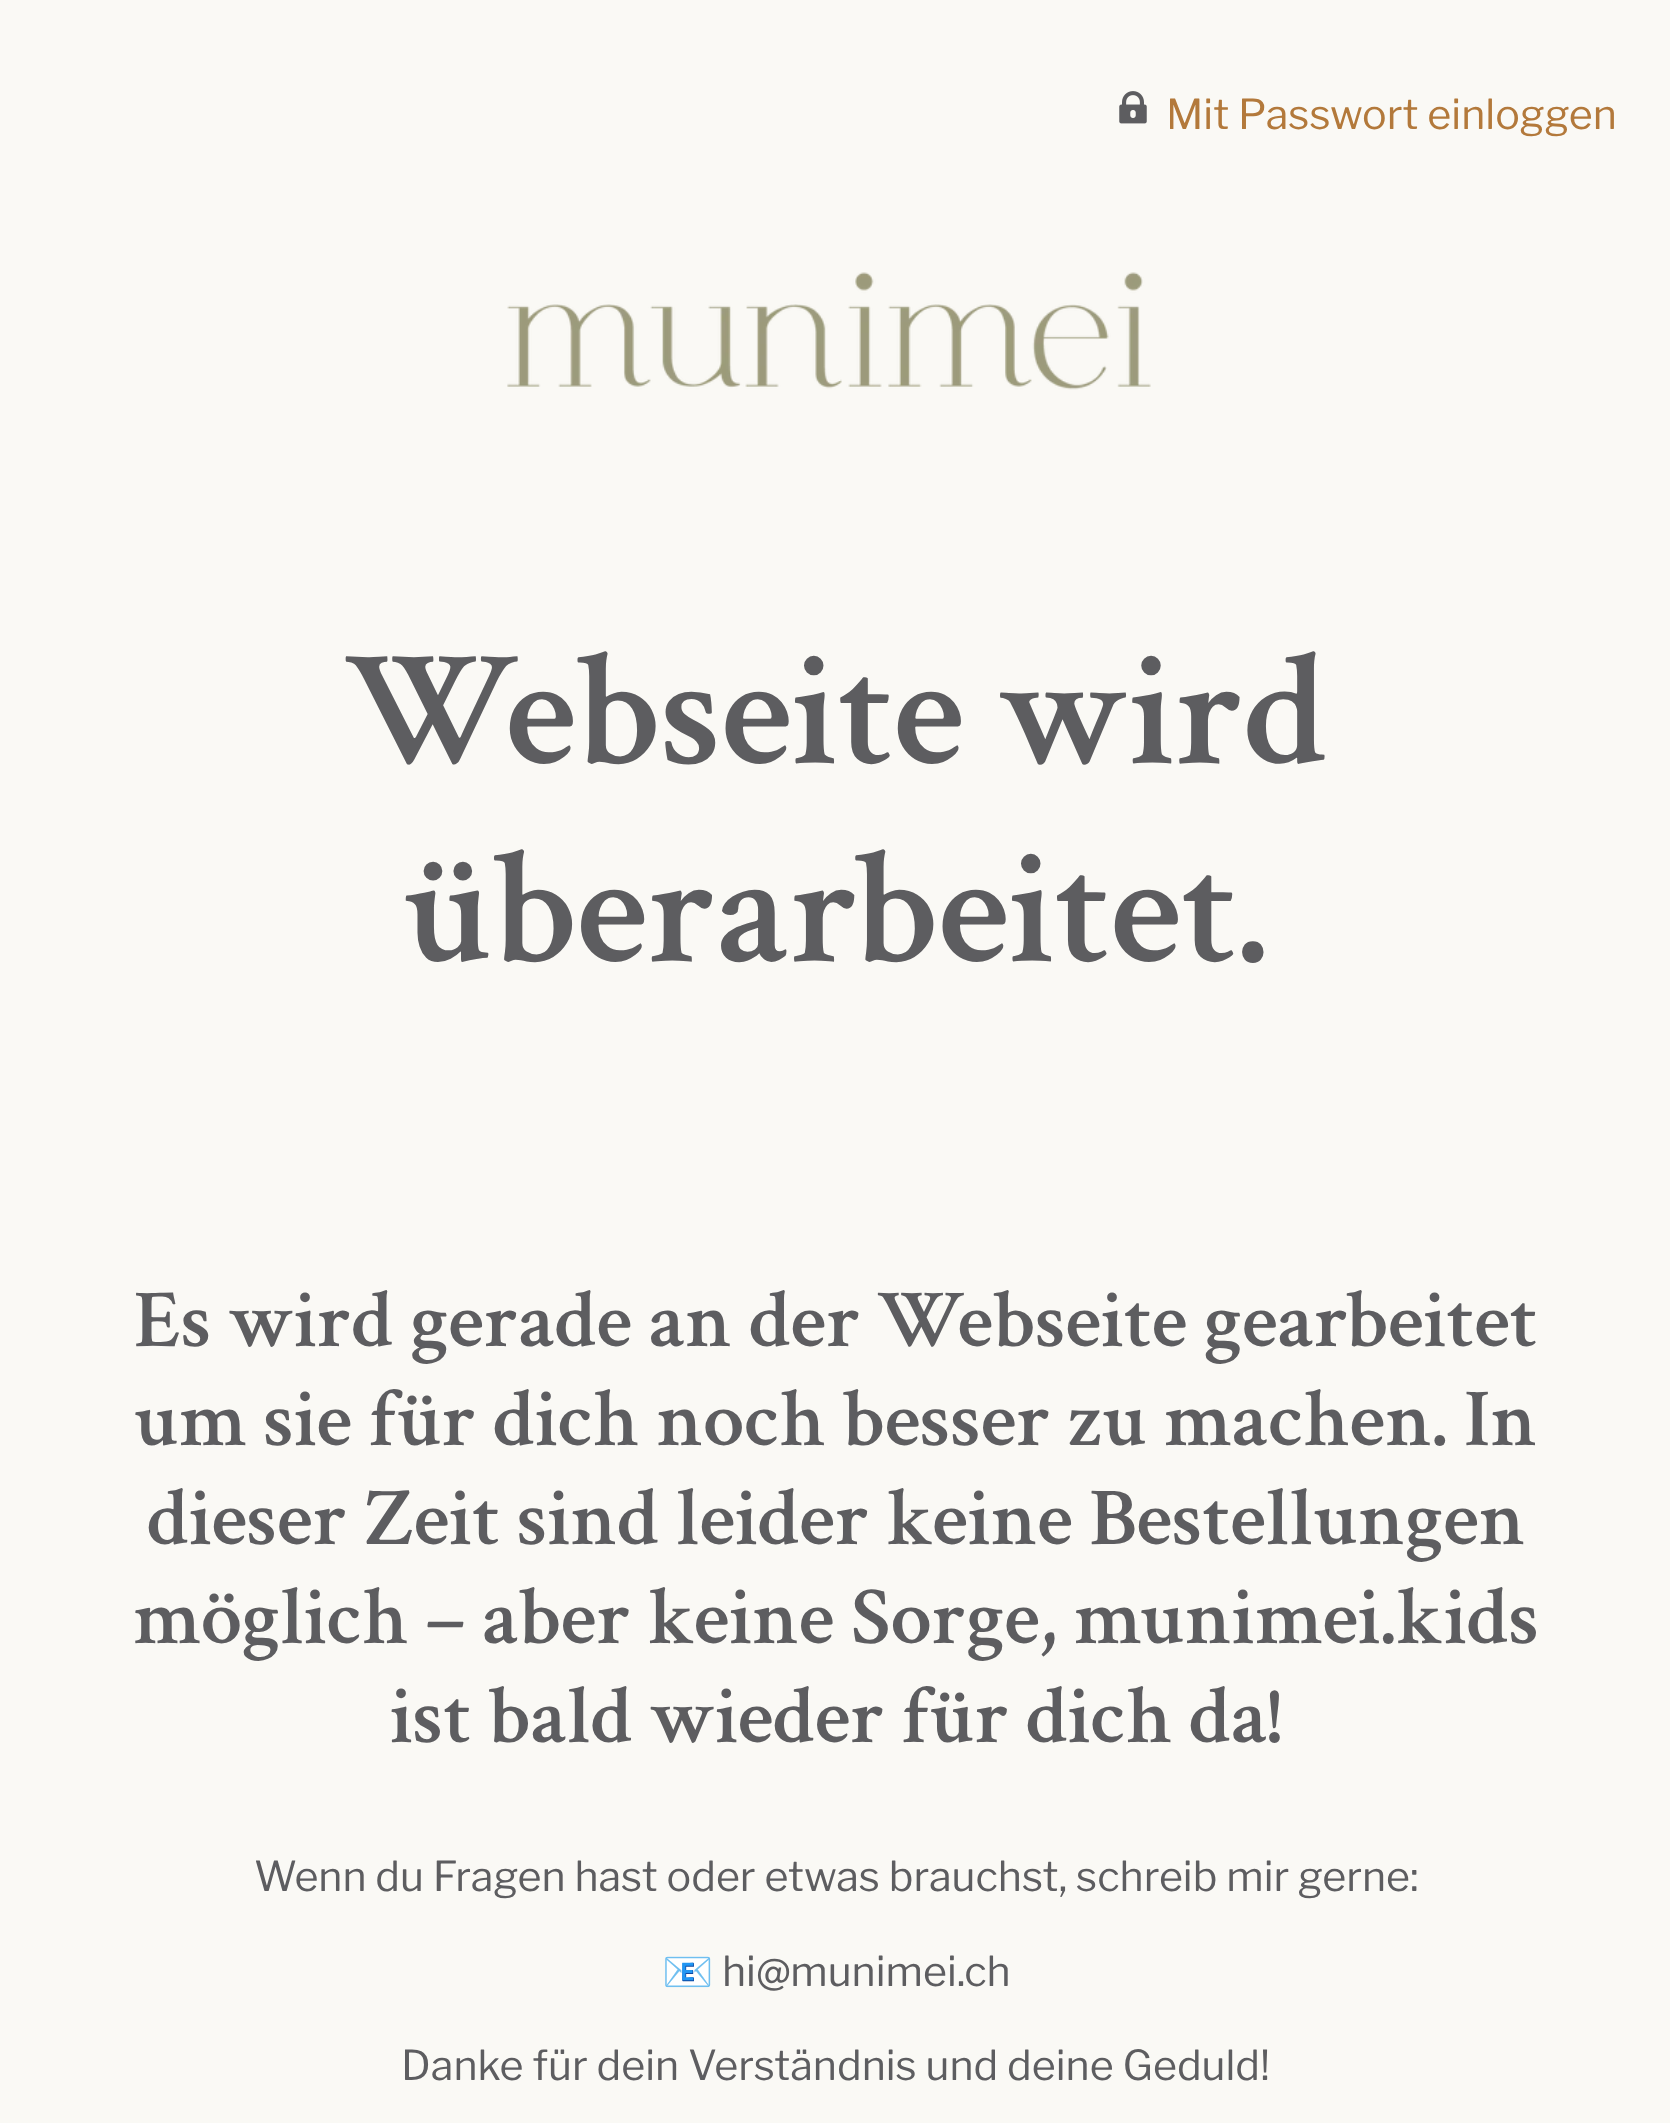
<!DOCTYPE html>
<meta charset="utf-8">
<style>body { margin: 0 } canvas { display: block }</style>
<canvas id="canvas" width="1670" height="2123"></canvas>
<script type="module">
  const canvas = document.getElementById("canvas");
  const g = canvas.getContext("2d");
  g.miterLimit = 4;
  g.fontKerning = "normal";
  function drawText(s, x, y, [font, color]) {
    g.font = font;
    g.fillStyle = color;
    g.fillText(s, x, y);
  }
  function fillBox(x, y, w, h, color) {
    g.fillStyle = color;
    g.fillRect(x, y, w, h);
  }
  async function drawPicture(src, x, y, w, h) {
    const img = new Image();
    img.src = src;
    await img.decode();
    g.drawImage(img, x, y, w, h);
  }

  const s1 = ["41.25px Libre Franklin", "#B3793B"];
  const s2 = ["600 165px Crimson Text", "#5D5D60"];
  const s3 = ["600 82.5px Crimson Text", "#5D5D60"];
  const s4 = ["41.25px Libre Franklin", "#5D5D60"];
  const s5 = ["41.25px Noto Color Emoji", "#5D5D60"];

  fillBox(0, 0, 1670, 2123, "#FAF9F5");
  await drawPicture("pic1.png", 1119, 91, 28, 33);
  drawText("Mit Passwort einloggen", 1166, 129, s1);
  await drawPicture("pic2.png", 507, 272, 644, 118);
  drawText("Webseite wird", 345, 763, s2);
  drawText("überarbeitet.", 403, 961, s2);
  drawText("Es wird gerade an der Webseite gearbeitet", 134, 1346, s3);
  drawText("um sie für dich noch besser zu machen. In", 134, 1445, s3);
  drawText("dieser Zeit sind leider keine Bestellungen", 147, 1544, s3);
  drawText("möglich – aber keine Sorge, munimei.kids", 133, 1643, s3);
  drawText("ist bald wieder für dich da!", 390, 1742, s3);
  drawText("Wenn du Fragen hast oder etwas brauchst, schreib mir gerne:", 254, 1891, s4);
  drawText("📧", 662, 1986, s5);
  drawText("hi@munimei.ch", 722, 1986, s4);
  drawText("Danke für dein Verständnis und deine Geduld!", 401, 2080, s4);
</script>
